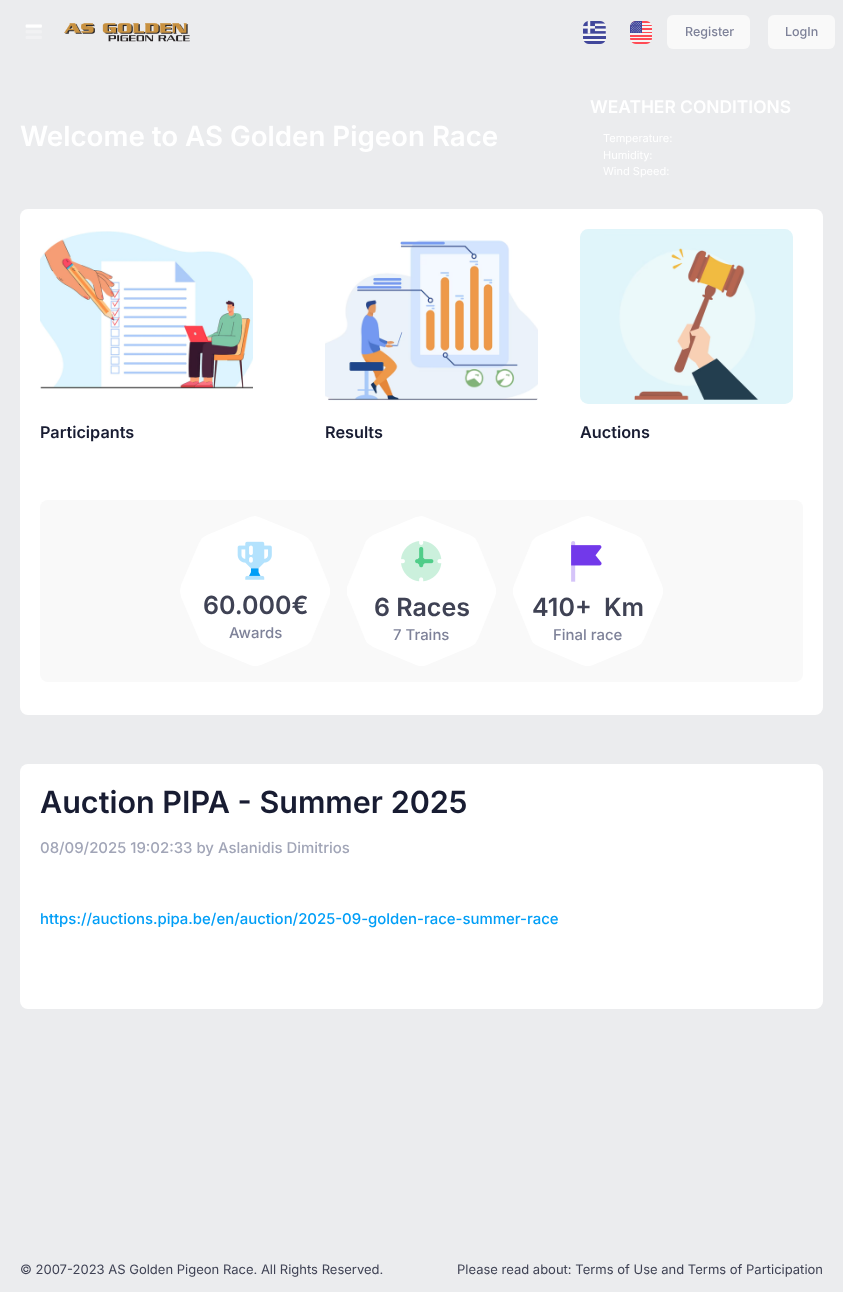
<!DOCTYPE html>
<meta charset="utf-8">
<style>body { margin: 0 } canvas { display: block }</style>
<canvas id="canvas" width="843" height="1292"></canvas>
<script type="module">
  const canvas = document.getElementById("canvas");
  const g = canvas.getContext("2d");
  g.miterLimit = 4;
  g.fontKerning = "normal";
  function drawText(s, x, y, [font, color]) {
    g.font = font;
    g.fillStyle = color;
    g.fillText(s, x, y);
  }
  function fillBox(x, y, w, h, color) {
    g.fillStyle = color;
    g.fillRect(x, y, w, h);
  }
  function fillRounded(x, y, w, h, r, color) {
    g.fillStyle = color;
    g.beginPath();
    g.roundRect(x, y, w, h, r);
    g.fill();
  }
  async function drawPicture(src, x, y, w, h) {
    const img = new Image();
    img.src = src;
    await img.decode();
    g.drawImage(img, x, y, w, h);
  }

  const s1 = ["500 12.5px Inter", "#7E8299"];
  const s2 = ["600 27.7px Inter", "#FFFFFF"];
  const s3 = ["600 17.4px Inter", "#FFFFFF"];
  const s4 = ["11px Inter", "#FFFFFF"];
  const s5 = ["600 16.25px Inter", "#181C32"];
  const s6 = ["600 25px Inter", "#3F4254"];
  const s7 = ["500 14.95px Inter", "#7E8299"];
  const s8 = ["600 30.5px Inter", "#181C32"];
  const s9 = ["500 14.95px Inter", "#A1A5B7"];
  const s10 = ["500 14.95px Inter", "#009EF7"];
  const s11 = ["13px Inter", "#3F4254"];

  fillBox(0, 0, 843, 1292, "#EBECEE");
  await drawPicture("pic1.png", 25, 24, 17, 15);
  await drawPicture("pic2.png", 64, 23, 126, 19);
  await drawPicture("pic3.png", 583, 21, 23, 23);
  await drawPicture("pic4.png", 630, 21, 22, 23);
  fillRounded(667, 15, 83, 34, 6, "#F9F9F9");
  drawText("Register", 685, 36, s1);
  fillRounded(768, 15, 67, 34, 6, "#F9F9F9");
  drawText("LogIn", 785, 36, s1);
  drawText("Welcome to AS Golden Pigeon Race", 20, 146, s2);
  drawText("WEATHER CONDITIONS", 590, 113, s3);
  drawText("Temperature:", 603, 142, s4);
  drawText("Humidity:", 603, 159, s4);
  drawText("Wind Speed:", 603, 175, s4);
  fillRounded(20, 209, 803, 506, 8, "#FFFFFF");
  await drawPicture("pic5.png", 40, 231, 213, 158);
  drawText("Participants", 40, 438, s5);
  await drawPicture("pic6.png", 325, 240, 213, 161);
  drawText("Results", 325, 438, s5);
  await drawPicture("pic7.png", 580, 229, 213, 175);
  drawText("Auctions", 580, 438, s5);
  fillRounded(40, 500, 763, 182, 8, "#F9F9F9");
  g.fillStyle = "#FFFFFF";
  g.beginPath();
  g.moveTo(250, 517);
  g.lineTo(255, 516);
  g.lineTo(259, 517);
  g.lineTo(303, 535);
  g.lineTo(308, 538);
  g.lineTo(312, 543);
  g.lineTo(329, 585);
  g.lineTo(330, 589);
  g.lineTo(330, 594);
  g.lineTo(329, 597);
  g.lineTo(311, 641);
  g.lineTo(307, 645);
  g.lineTo(303, 647);
  g.lineTo(261, 665);
  g.lineTo(257, 666);
  g.lineTo(253, 666);
  g.lineTo(250, 665);
  g.lineTo(207, 647);
  g.lineTo(204, 645);
  g.lineTo(201, 643);
  g.lineTo(199, 639);
  g.lineTo(181, 597);
  g.lineTo(180, 591);
  g.lineTo(181, 585);
  g.lineTo(199, 543);
  g.lineTo(202, 538);
  g.lineTo(207, 535);
  g.closePath();
  g.fill();
  await drawPicture("pic8.png", 237, 541, 35, 39);
  drawText("60.000€", 203, 614, s6);
  drawText("Awards", 229, 638, s7);
  g.fillStyle = "#FFFFFF";
  g.beginPath();
  g.moveTo(416, 517);
  g.lineTo(422, 516);
  g.lineTo(425, 517);
  g.lineTo(470, 535);
  g.lineTo(475, 538);
  g.lineTo(478, 543);
  g.lineTo(495, 585);
  g.lineTo(496, 589);
  g.lineTo(496, 593);
  g.lineTo(495, 597);
  g.lineTo(478, 639);
  g.lineTo(475, 644);
  g.lineTo(470, 647);
  g.lineTo(427, 665);
  g.lineTo(424, 666);
  g.lineTo(419, 666);
  g.lineTo(416, 665);
  g.lineTo(373, 647);
  g.lineTo(370, 645);
  g.lineTo(367, 643);
  g.lineTo(365, 639);
  g.lineTo(348, 597);
  g.lineTo(347, 595);
  g.lineTo(347, 587);
  g.lineTo(366, 541);
  g.lineTo(370, 537);
  g.lineTo(373, 535);
  g.closePath();
  g.fill();
  await drawPicture("pic9.png", 401, 541, 41, 41);
  drawText("6 Races", 374, 616, s6);
  drawText("7 Trains", 393, 640, s7);
  g.fillStyle = "#FFFFFF";
  g.beginPath();
  g.moveTo(582, 517);
  g.lineTo(588, 516);
  g.lineTo(592, 517);
  g.lineTo(636, 535);
  g.lineTo(641, 538);
  g.lineTo(644, 543);
  g.lineTo(662, 585);
  g.lineTo(663, 589);
  g.lineTo(663, 593);
  g.lineTo(662, 597);
  g.lineTo(644, 639);
  g.lineTo(641, 644);
  g.lineTo(636, 647);
  g.lineTo(593, 665);
  g.lineTo(590, 666);
  g.lineTo(586, 666);
  g.lineTo(582, 665);
  g.lineTo(540, 647);
  g.lineTo(536, 645);
  g.lineTo(533, 643);
  g.lineTo(531, 639);
  g.lineTo(514, 597);
  g.lineTo(513, 594);
  g.lineTo(513, 589);
  g.lineTo(514, 585);
  g.lineTo(532, 541);
  g.lineTo(536, 537);
  g.lineTo(540, 535);
  g.closePath();
  g.fill();
  await drawPicture("pic10.png", 571, 541, 31, 41);
  drawText("410+", 532, 616, s6);
  drawText("Km", 604, 616, s6);
  drawText("Final race", 553, 640, s7);
  fillRounded(20, 764, 803, 245, 8, "#FFFFFF");
  drawText("Auction PIPA - Summer 2025", 40, 813, s8);
  drawText("08/09/2025 19:02:33 by Aslanidis Dimitrios", 40, 853, s9);
  drawText("https://auctions.pipa.be/en/auction/2025-09-golden-race-summer-race", 40, 924, s10);
  drawText("© 2007-2023 AS Golden Pigeon Race. All Rights Reserved.", 20, 1274, s11);
  drawText("Please read about: Terms of Use and Terms of Participation", 457, 1274, s11);
</script>
